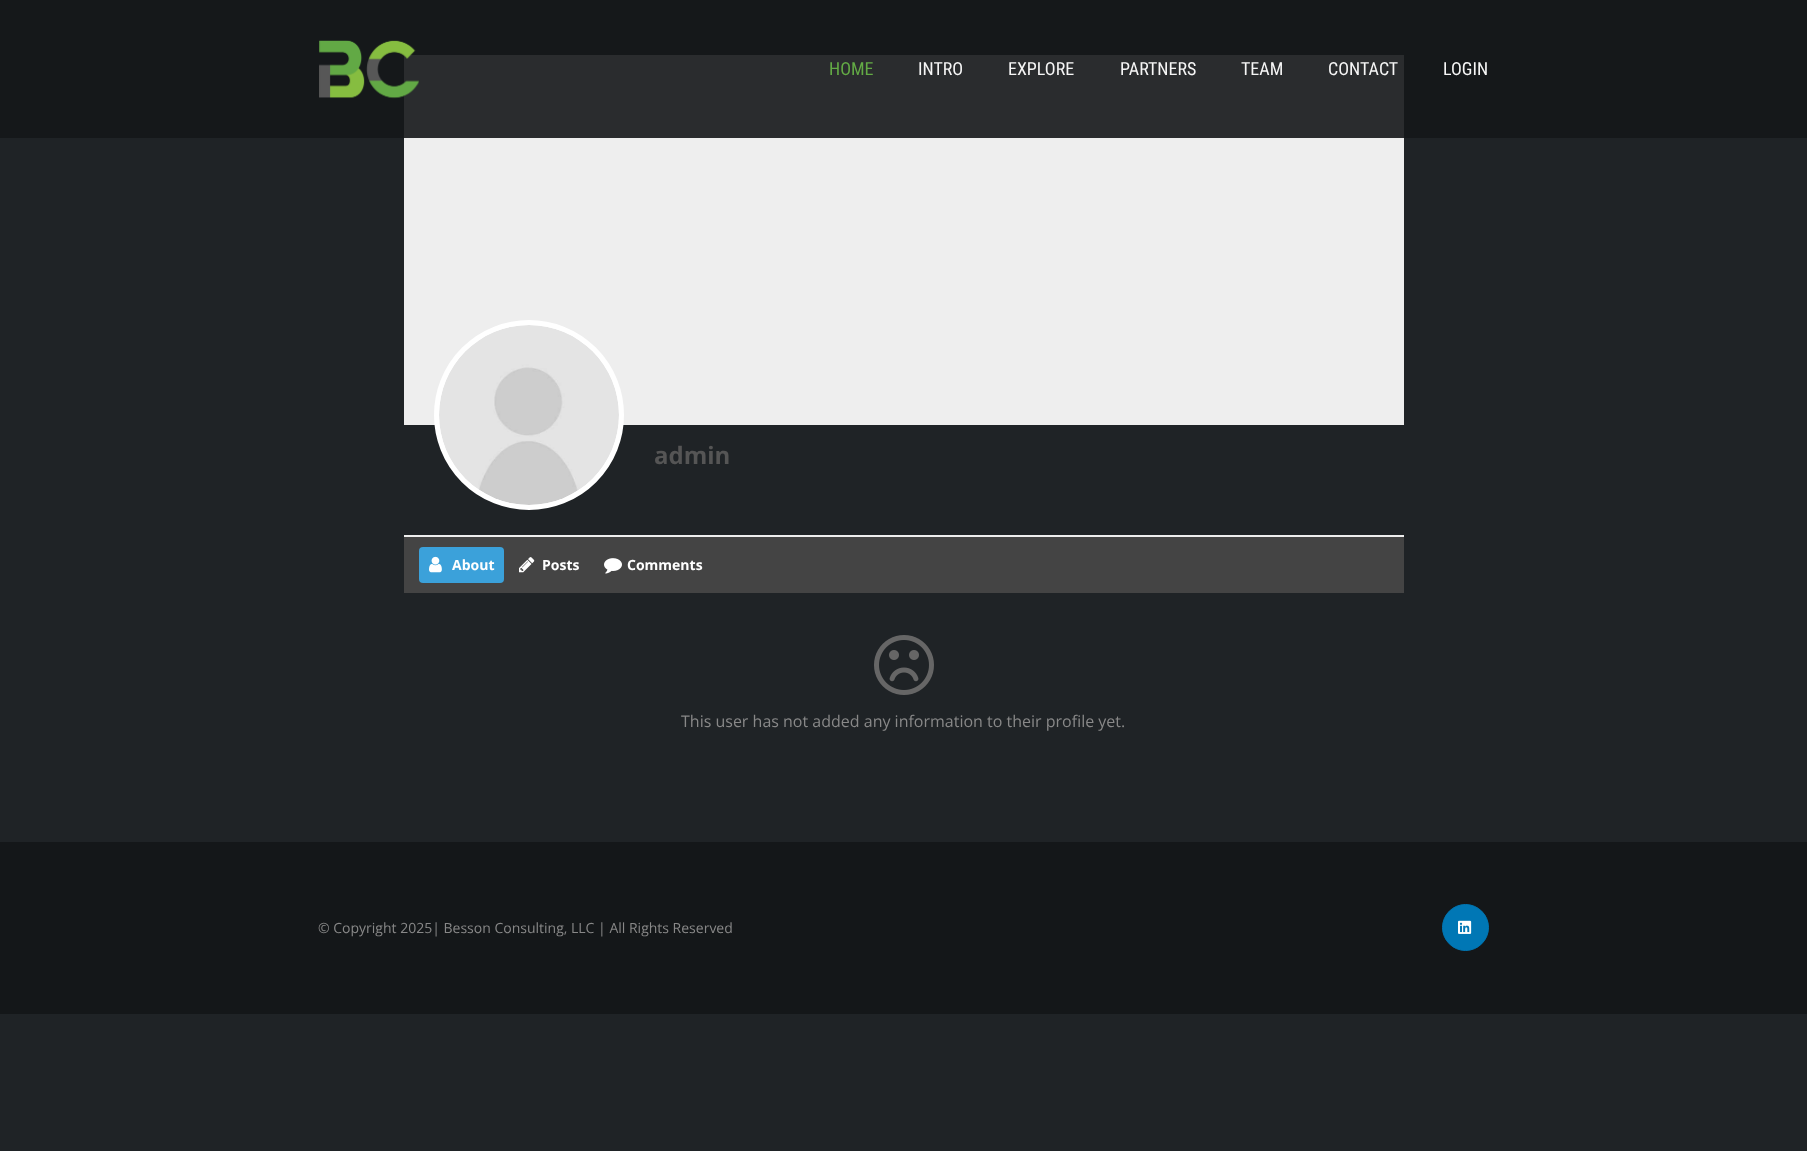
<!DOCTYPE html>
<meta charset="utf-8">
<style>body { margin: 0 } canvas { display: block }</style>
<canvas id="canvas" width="1807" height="1151"></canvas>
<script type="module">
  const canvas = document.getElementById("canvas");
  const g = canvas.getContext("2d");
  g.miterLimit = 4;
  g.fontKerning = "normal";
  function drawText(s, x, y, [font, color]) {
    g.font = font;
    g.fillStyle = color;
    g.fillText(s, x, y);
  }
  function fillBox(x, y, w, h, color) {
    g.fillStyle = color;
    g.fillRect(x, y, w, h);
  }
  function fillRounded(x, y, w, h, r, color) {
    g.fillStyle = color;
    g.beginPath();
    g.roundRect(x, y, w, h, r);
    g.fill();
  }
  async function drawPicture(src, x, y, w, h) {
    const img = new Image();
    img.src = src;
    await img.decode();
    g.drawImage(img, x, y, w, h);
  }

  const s1 = ["18px Roboto Condensed", "#63AA45"];
  const s2 = ["18px Roboto Condensed", "#F6F6F6"];
  const s3 = ["bold 24px Open Sans", "#555555"];
  const s4 = ["bold 14px Open Sans", "#FFFFFF"];
  const s5 = ["16px Open Sans", "#888888"];
  const s6 = ["14px Open Sans", "#888888"];

  fillBox(0, 0, 1807, 1151, "#1F2326");
  fillBox(0, 0, 1807, 138, "#15181A");
  fillBox(404, 55, 1000, 83, "#2A2C2E");
  await drawPicture("pic1.png", 319, 40, 100, 59);
  drawText("HOME", 829, 75, s1);
  drawText("INTRO", 918, 75, s2);
  drawText("EXPLORE", 1008, 75, s2);
  drawText("PARTNERS", 1120, 75, s2);
  drawText("TEAM", 1241, 75, s2);
  drawText("CONTACT", 1328, 75, s2);
  drawText("LOGIN", 1443, 75, s2);
  fillBox(404, 138, 1000, 287, "#EEEEEE");
  fillBox(404, 535, 1000, 2, "#EEEEEE");
  g.fillStyle = "#FFFFFF";
  g.beginPath();
  g.arc(529, 415, 92.5, 0, Math.PI * 2);
  g.fill();
  g.strokeStyle = "#FFFFFF";
  g.lineWidth = 5;
  g.stroke();
  await drawPicture("pic2.png", 439, 325, 180, 180);
  drawText("admin", 654, 464, s3);
  fillBox(404, 537, 1000, 56, "#444444");
  fillRounded(419, 547, 85, 36, 4, "#3BA1DA");
  await drawPicture("pic3.png", 429, 556, 13, 17);
  drawText("About", 452, 570, s4);
  await drawPicture("pic4.png", 519, 557, 16, 16);
  drawText("Posts", 542, 570, s4);
  await drawPicture("pic5.png", 604, 558, 18, 16);
  drawText("Comments", 627, 570, s4);
  await drawPicture("pic6.png", 874, 635, 60, 60);
  drawText("This user has not added any information to their profile yet.", 681, 727, s5);
  fillBox(0, 842, 1807, 172, "#141719");
  drawText("© Copyright 2025| Besson Consulting, LLC | All Rights Reserved", 318, 933, s6);
  g.fillStyle = "#0077B5";
  g.beginPath();
  g.arc(1465.5, 927.5, 23, 0, Math.PI * 2);
  g.fill();
  g.strokeStyle = "#0077B5";
  g.lineWidth = 1;
  g.stroke();
  await drawPicture("pic7.png", 1458, 920, 14, 14);
</script>
